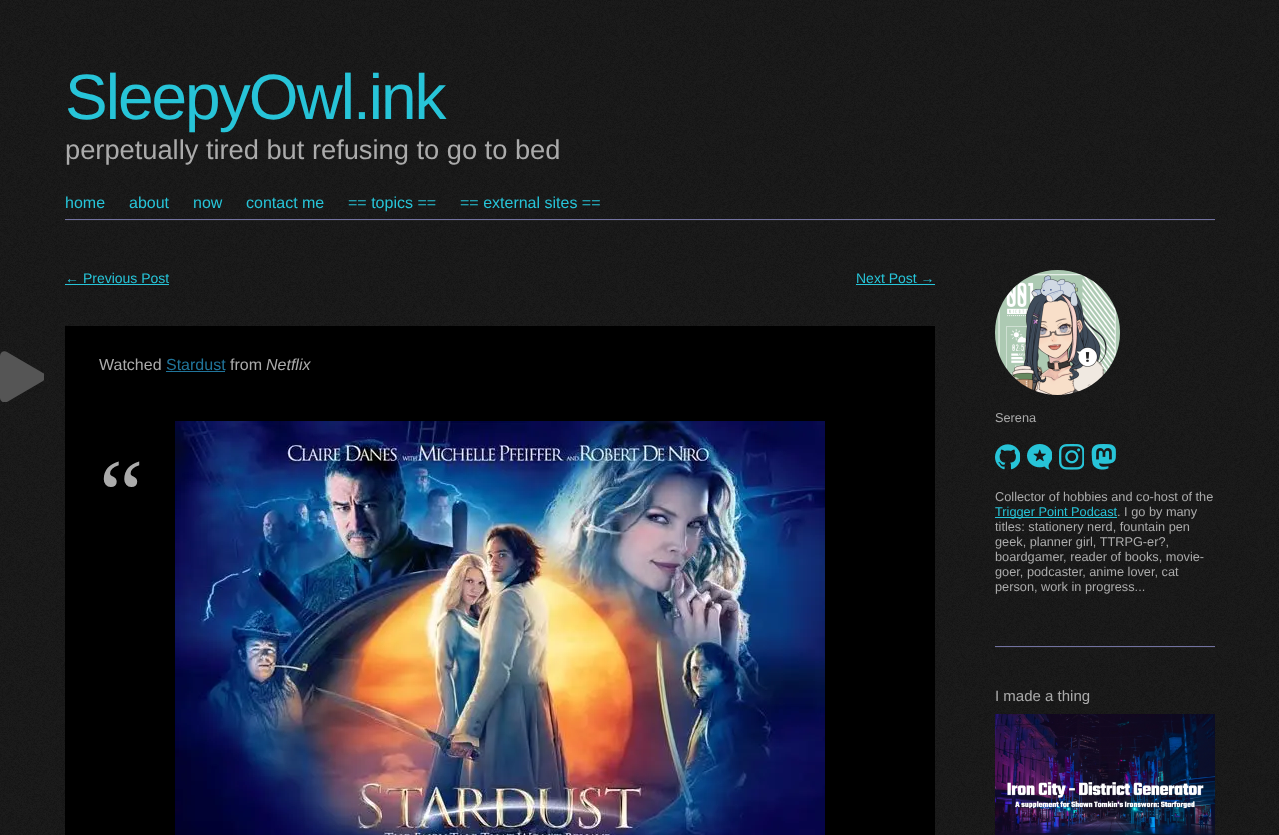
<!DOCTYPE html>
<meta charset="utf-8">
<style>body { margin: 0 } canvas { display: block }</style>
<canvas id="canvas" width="1279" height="835"></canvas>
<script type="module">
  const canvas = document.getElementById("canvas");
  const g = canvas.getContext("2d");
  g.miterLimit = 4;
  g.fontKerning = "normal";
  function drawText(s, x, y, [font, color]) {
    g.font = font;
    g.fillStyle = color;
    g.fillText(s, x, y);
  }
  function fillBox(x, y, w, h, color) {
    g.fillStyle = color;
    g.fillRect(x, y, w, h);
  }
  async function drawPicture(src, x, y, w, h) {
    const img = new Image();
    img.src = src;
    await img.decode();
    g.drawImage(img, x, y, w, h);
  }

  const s1 = ["64px Liberation Sans", "#27C4D8"];
  const s2 = ["27.25px Liberation Sans", "#ABABAB"];
  const s3 = ["16px Liberation Sans", "#27C4D8"];
  const s4 = ["14px Liberation Sans", "#27C4D8"];
  const s5 = ["16px Liberation Sans", "#ABABAB"];
  const s6 = ["16px Liberation Sans", "#21759B"];
  const s7 = ["italic 16px Liberation Sans", "#ABABAB"];
  const s8 = ["100px Liberation Serif", "#ABABAB"];
  const s9 = ["12.75px Liberation Sans", "#ABABAB"];
  const s10 = ["12.75px Liberation Sans", "#27C4D8"];
  const s11 = ["15px Liberation Sans", "#ABABAB"];

  fillBox(0, 0, 1279, 835, "#161616");
  await drawPicture("pic1.png", 0, 0, 1279, 835);
  g.letterSpacing = "-2px";
  drawText("SleepyOwl.ink", 65, 119, s1);
  g.letterSpacing = "0px";
  drawText("perpetually tired but refusing to go to bed", 65, 159, s2);
  fillBox(65, 220, 1150, 1, "#212121");
  fillBox(65, 219, 1150, 1, "#7272A0");
  drawText("home", 65, 208, s3);
  drawText("about", 129, 208, s3);
  drawText("now", 193, 208, s3);
  drawText("contact me", 246, 208, s3);
  drawText("== topics ==", 348, 208, s3);
  drawText("== external sites ==", 460, 208, s3);
  drawText("← Previous Post", 65, 283, s4);
  fillBox(65, 284, 104, 1, "#27C4D8");
  drawText("Next Post →", 856, 283, s4);
  fillBox(856, 284, 79, 1, "#27C4D8");
  fillBox(65, 326, 870, 509, "#000000");
  g.save();
  g.beginPath();
  g.rect(0, 351, 44, 51);
  g.clip();
  g.fillStyle = "#555555";
  g.beginPath();
  g.moveTo(43, 373);
  g.lineTo(7, 352);
  g.bezierCurveTo(4, 350, 0, 352, 0, 356);
  g.lineTo(0, 398);
  g.bezierCurveTo(0, 401, 4, 404, 7, 402);
  g.lineTo(43, 381);
  g.bezierCurveTo(46, 379, 46, 374, 43, 373);
  g.closePath();
  g.fill();
  g.restore();
  drawText("Watched", 99, 370, s5);
  drawText("Stardust", 166, 370, s6);
  fillBox(166, 371, 59, 1, "#21759B");
  drawText("from", 230, 370, s5);
  drawText("Netflix", 266, 370, s7);
  drawText("“", 99, 528, s8);
  await drawPicture("pic2.png", 175, 421, 650, 414);
  fillBox(995, 647, 220, 1, "#212121");
  fillBox(995, 646, 220, 1, "#7272A0");
  await drawPicture("pic3.png", 995, 270, 125, 125);
  drawText("Serena", 995, 422, s9);
  await drawPicture("pic4.png", 995, 444, 25, 26);
  await drawPicture("pic5.png", 1027, 444, 25, 26);
  await drawPicture("pic6.png", 1059, 444, 25, 26);
  await drawPicture("pic7.png", 1091, 444, 25, 26);
  drawText("Collector of hobbies and co-host of the", 995, 501, s9);
  fillBox(995, 517, 122, 1, "#27C4D8");
  drawText("Trigger Point Podcast", 995, 516, s10);
  drawText(". I go by many", 1117, 516, s9);
  drawText("titles: stationery nerd, fountain pen", 995, 531, s9);
  drawText("geek, planner girl, TTRPG-er?,", 995, 546, s9);
  drawText("boardgamer, reader of books, movie-", 995, 561, s9);
  drawText("goer, podcaster, anime lover, cat", 995, 576, s9);
  drawText("person, work in progress...", 995, 591, s9);
  drawText("I made a thing", 995, 701, s11);
  await drawPicture("pic8.png", 995, 714, 220, 121);
</script>
